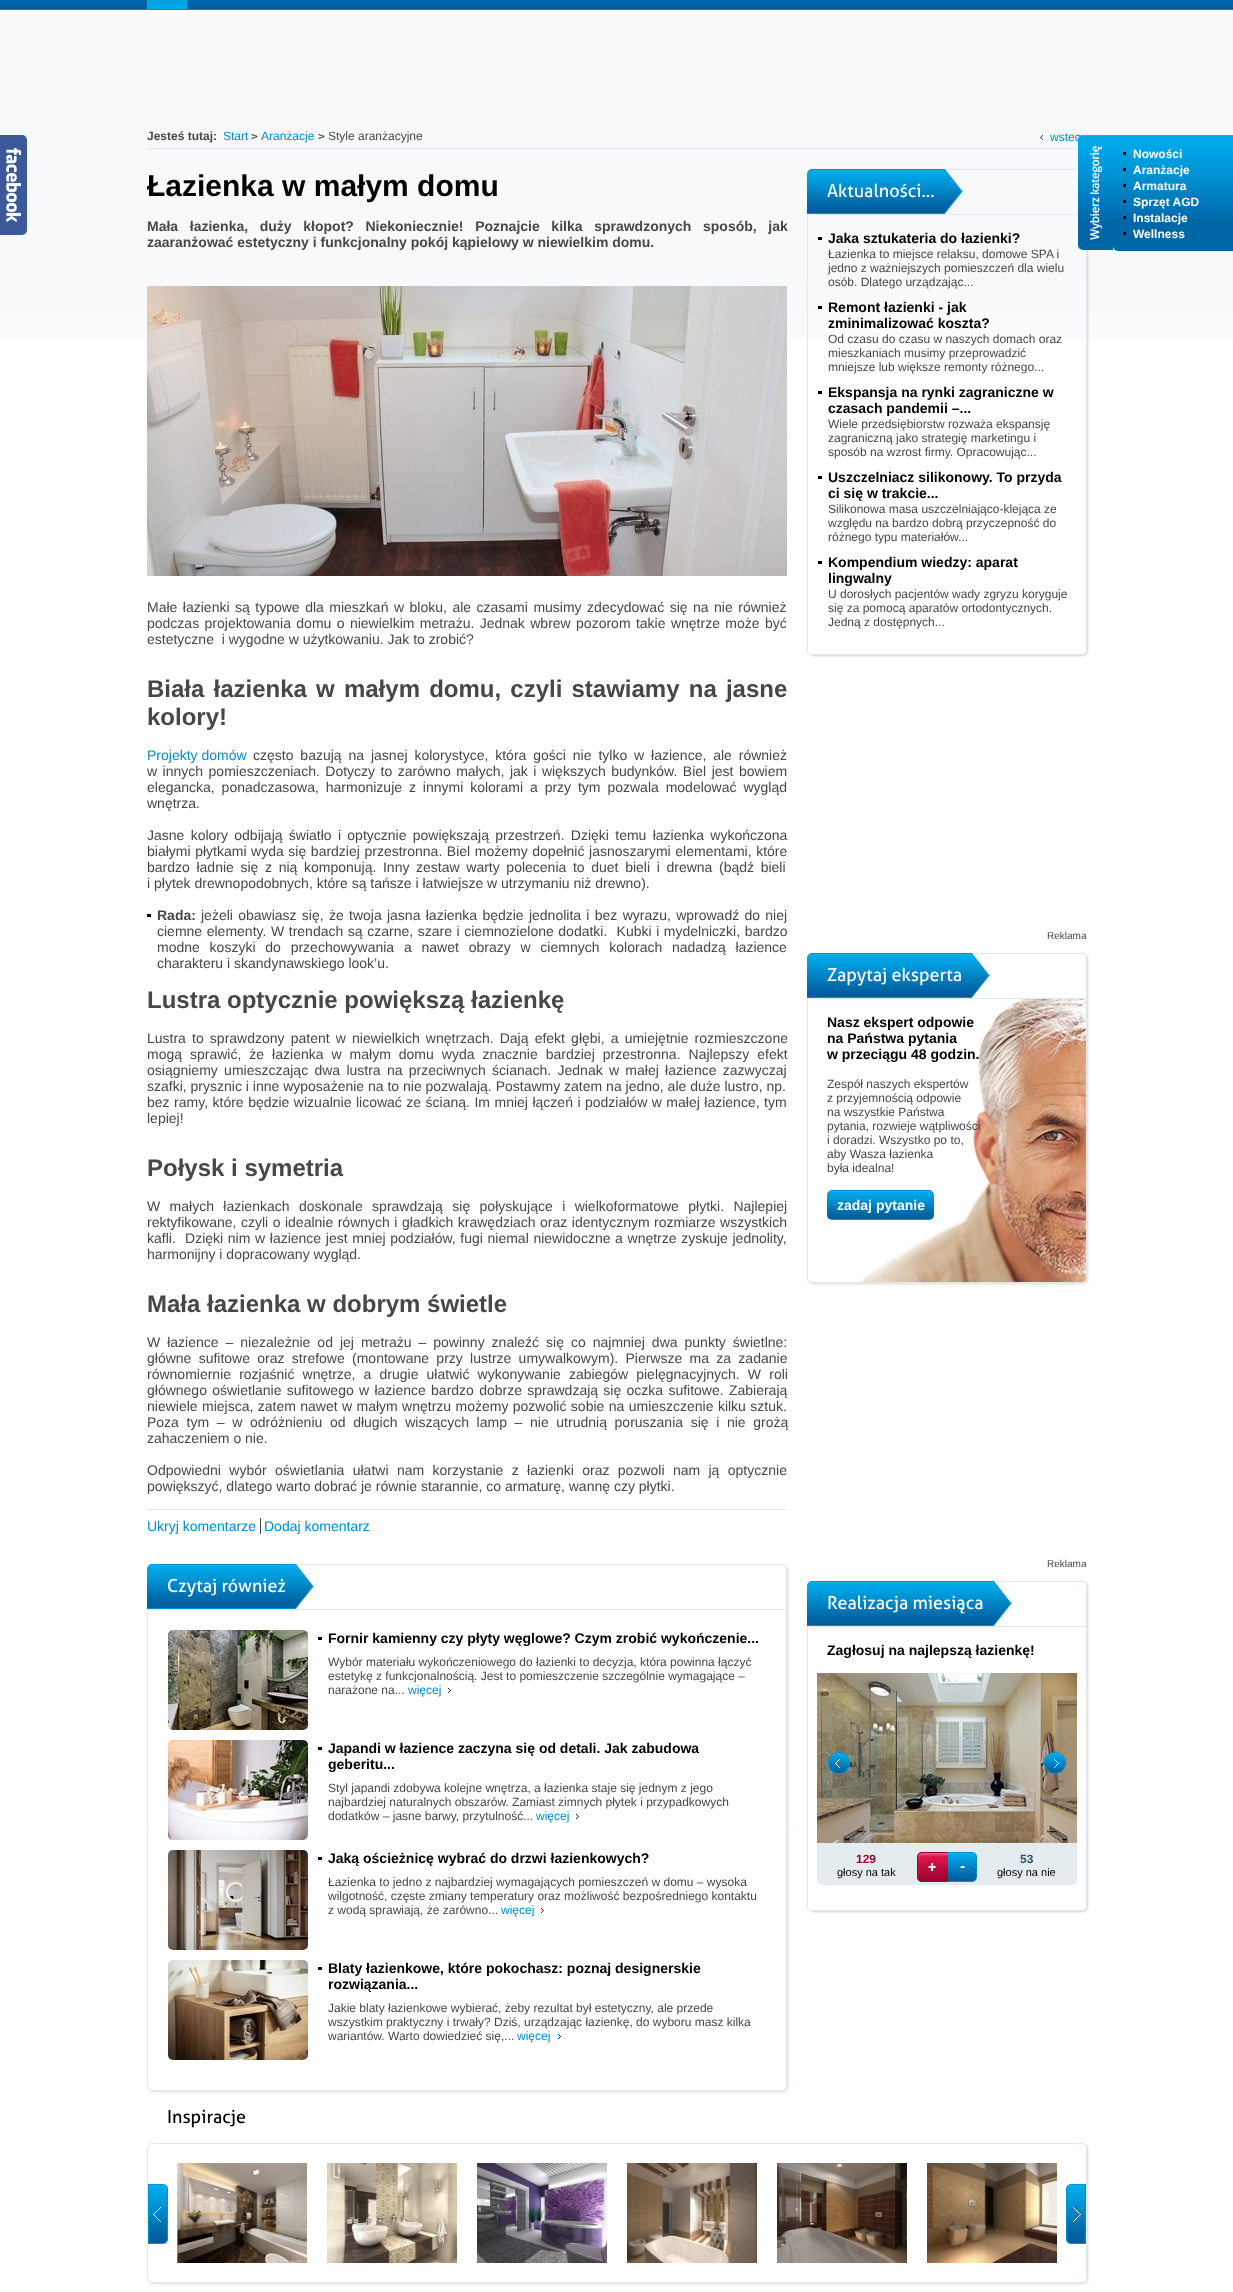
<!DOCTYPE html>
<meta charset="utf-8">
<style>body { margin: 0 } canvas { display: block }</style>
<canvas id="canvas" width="1233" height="2292"></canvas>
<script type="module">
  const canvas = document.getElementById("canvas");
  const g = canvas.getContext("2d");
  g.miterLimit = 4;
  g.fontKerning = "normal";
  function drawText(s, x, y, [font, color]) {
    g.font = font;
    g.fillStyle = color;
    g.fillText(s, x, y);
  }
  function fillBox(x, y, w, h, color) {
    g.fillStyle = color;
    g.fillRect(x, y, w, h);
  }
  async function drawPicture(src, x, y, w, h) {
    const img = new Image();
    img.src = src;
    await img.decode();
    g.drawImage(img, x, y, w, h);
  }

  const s1 = ["bold 12px Liberation Sans", "#474747"];
  const s2 = ["12px Liberation Sans", "#008DCD"];
  const s3 = ["12px Liberation Sans", "#474747"];
  const s4 = ["bold 12px Liberation Sans", "#FFFFFF"];
  const s5 = ["bold 30px Liberation Sans", "#000000"];
  const s6 = ["bold 14px Liberation Sans", "#474747"];
  const s7 = ["14px Liberation Sans", "#474747"];
  const s8 = ["bold 24px Liberation Sans", "#474747"];
  const s9 = ["14px Liberation Sans", "#008DCD"];
  const s10 = ["18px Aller", "#FFFFFF"];
  const s11 = ["bold 14px Liberation Sans", "#000000"];
  const s12 = ["10px Liberation Sans", "#474747"];
  const s13 = ["bold 14px Liberation Sans", "#FFFFFF"];
  const s14 = ["bold 12px Liberation Sans", "#A30334"];
  const s15 = ["11px Liberation Sans", "#000000"];
  const s16 = ["bold 12px Liberation Sans", "#2A566A"];
  const s17 = ["18px Aller", "#000000"];

  fillBox(0, 0, 1233, 2292, "#FFFFFF");
  await drawPicture("pic1.png", 0, 0, 1233, 339);
  await drawPicture("pic2.png", 147, 0, 40, 9);
  g.fillStyle = "#3B5999";
  g.beginPath();
  g.roundRect(0, 135, 27, 100, [0, 5, 5, 0]);
  g.fill();
  await drawPicture("pic3.png", 6, 148, 15, 74);
  fillBox(147, 148, 931, 1, "#E3E8EB");
  drawText("Jesteś tutaj:", 147, 140, s1);
  await drawPicture("pic4.png", 251, 134, 7, 5);
  drawText("Start", 223, 140, s2);
  await drawPicture("pic4.png", 318, 134, 7, 5);
  drawText("Aranżacje", 261, 140, s2);
  drawText("Style aranżacyjne", 328, 140, s3);
  await drawPicture("pic5.png", 1040, 135, 3, 5);
  drawText("wstec", 1050, 141, s2);
  g.fillStyle = "#0067A7";
  g.beginPath();
  g.roundRect(1113, 135, 120, 116, [0, 0, 0, 5]);
  g.fill();
  await drawPicture("pic6.png", 1113, 135, 120, 84);
  g.save();
  g.beginPath();
  g.moveTo(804, 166);
  g.lineTo(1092, 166);
  g.lineTo(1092, 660);
  g.lineTo(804, 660);
  g.closePath();
  g.moveTo(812, 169);
  g.lineTo(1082, 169);
  g.bezierCurveTo(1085, 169, 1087, 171, 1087, 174);
  g.lineTo(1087, 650);
  g.bezierCurveTo(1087, 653, 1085, 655, 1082, 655);
  g.lineTo(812, 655);
  g.bezierCurveTo(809, 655, 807, 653, 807, 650);
  g.lineTo(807, 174);
  g.bezierCurveTo(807, 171, 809, 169, 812, 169);
  g.closePath();
  g.clip("evenodd");
  g.fillStyle = "rgba(50, 50, 50, 0.2)";
  g.filter = "blur(1px)";
  g.beginPath();
  g.roundRect(808, 170, 280, 486, 5);
  g.fill();
  g.filter = "none";
  g.restore();
  g.beginPath();
  g.roundRect(807.5, 169.5, 279, 485, 4.5);
  g.strokeStyle = "#E3E8EB";
  g.stroke();
  fillBox(807, 214, 279, 1, "#E3E8EB");
  g.fillStyle = "#0067A7";
  g.beginPath();
  g.roundRect(1078, 135, 35, 115, [5, 0, 0, 5]);
  g.fill();
  await drawPicture("pic7.png", 1078, 135, 35, 84);
  await drawPicture("pic8.png", 1090, 146, 13, 94);
  fillBox(1123, 152, 3, 3, "#000000");
  drawText("Nowości", 1133, 158, s4);
  fillBox(1123, 168, 3, 3, "#000000");
  drawText("Aranżacje", 1133, 174, s4);
  fillBox(1123, 184, 3, 3, "#000000");
  drawText("Armatura", 1133, 190, s4);
  fillBox(1123, 200, 3, 3, "#000000");
  drawText("Sprzęt AGD", 1133, 206, s4);
  fillBox(1123, 216, 3, 3, "#000000");
  drawText("Instalacje", 1133, 222, s4);
  fillBox(1123, 232, 3, 3, "#000000");
  drawText("Wellness", 1133, 238, s4);
  drawText("Łazienka w małym domu", 147, 196, s5);
  g.wordSpacing = "7.75px";
  drawText("Mała łazienka, duży kłopot? Niekoniecznie! Poznajcie kilka sprawdzonych sposób, jak", 147, 231, s6);
  g.wordSpacing = "0px";
  drawText("zaaranżować estetyczny i funkcjonalny pokój kąpielowy w niewielkim domu.", 147, 247, s6);
  await drawPicture("pic9.png", 147, 286, 640, 290);
  g.wordSpacing = "1.6px";
  drawText("Małe łazienki są typowe dla mieszkań w bloku, ale czasami musimy zdecydować się na nie również", 147, 612, s7);
  g.wordSpacing = "1.5px";
  drawText("podczas projektowania domu o niewielkim metrażu. Jednak wbrew pozorom takie wnętrze może być", 147, 628, s7);
  g.wordSpacing = "0px";
  drawText("estetyczne  i wygodne w użytkowaniu. Jak to zrobić?", 147, 644, s7);
  g.wordSpacing = "2.5px";
  drawText("Biała łazienka w małym domu, czyli stawiamy na jasne", 147, 697, s8);
  g.wordSpacing = "0px";
  drawText("kolory!", 147, 725, s8);
  drawText("Projekty domów", 147, 760, s9);
  g.wordSpacing = "3px";
  drawText("często bazują na jasnej kolorystyce, która gości nie tylko w łazience, ale również", 253, 760, s7);
  g.wordSpacing = "1.6px";
  drawText("w innych pomieszczeniach. Dotyczy to zarówno małych, jak i większych budynków. Biel jest bowiem", 147, 776, s7);
  g.wordSpacing = "3px";
  drawText("elegancka, ponadczasowa, harmonizuje z innymi kolorami a przy tym pozwala modelować wygląd", 147, 792, s7);
  g.wordSpacing = "0px";
  drawText("wnętrza.", 147, 808, s7);
  g.wordSpacing = "2.4px";
  drawText("Jasne kolory odbijają światło i optycznie powiększają przestrzeń. Dzięki temu łazienka wykończona", 147, 840, s7);
  g.wordSpacing = "0.7px";
  drawText("białymi płytkami wyda się bardziej przestronna. Biel możemy dopełnić jasnoszarymi elementami, które", 147, 856, s7);
  g.wordSpacing = "2.75px";
  drawText("bardzo ładnie się z nią komponują. Inny zestaw warty polecenia to duet bieli i drewna (bądź bieli", 147, 872, s7);
  g.wordSpacing = "0px";
  drawText("i płytek drewnopodobnych, które są tańsze i łatwiejsze w utrzymaniu niż drewno).", 147, 888, s7);
  fillBox(147, 914, 4, 3, "#000000");
  drawText("Rada:", 157, 920, s6);
  g.wordSpacing = "1.4px";
  drawText("jeżeli obawiasz się, że twoja jasna łazienka będzie jednolita i bez wyrazu, wprowadź do niej", 201, 920, s7);
  g.wordSpacing = "0.7px";
  drawText("ciemne elementy. W trendach są czarne, szare i ciemnozielone dodatki.  Kubki i mydelniczki, bardzo", 157, 936, s7);
  g.wordSpacing = "5.9px";
  drawText("modne koszyki do przechowywania a nawet obrazy w ciemnych kolorach nadadzą łazience", 157, 952, s7);
  g.wordSpacing = "0px";
  drawText("charakteru i skandynawskiego look’u.", 157, 968, s7);
  drawText("Lustra optycznie powiększą łazienkę", 147, 1008, s8);
  g.wordSpacing = "2.25px";
  drawText("Lustra to sprawdzony patent w niewielkich wnętrzach. Dają efekt głębi, a umiejętnie rozmieszczone", 147, 1043, s7);
  g.wordSpacing = "4.1px";
  drawText("mogą sprawić, że łazienka w małym domu wyda znacznie bardziej przestronna. Najlepszy efekt", 147, 1059, s7);
  g.wordSpacing = "2.4px";
  drawText("osiągniemy umieszczając dwa lustra na przeciwnych ścianach. Jednak w małej łazience zazwyczaj", 147, 1075, s7);
  g.wordSpacing = "0px";
  drawText("szafki, prysznic i inne wyposażenie na to nie pozwalają. Postawmy zatem na jedno, ale duże lustro, np.", 147, 1091, s7);
  g.wordSpacing = "0.6px";
  drawText("bez ramy, które będzie wizualnie licować ze ścianą. Im mniej łączeń i podziałów w małej łazience, tym", 147, 1107, s7);
  g.wordSpacing = "0px";
  drawText("lepiej!", 147, 1123, s7);
  drawText("Połysk i symetria", 147, 1176, s8);
  g.wordSpacing = "5.5px";
  drawText("W małych łazienkach doskonale sprawdzają się połyskujące i wielkoformatowe płytki. Najlepiej", 147, 1211, s7);
  g.wordSpacing = "0.6px";
  drawText("rektyfikowane, czyli o idealnie równych i gładkich krawędziach oraz identycznym rozmiarze wszystkich", 147, 1227, s7);
  g.wordSpacing = "0.75px";
  drawText("kafli.  Dzięki nim w łazience jest mniej podziałów, fugi niemal niewidoczne a wnętrze zyskuje jednolity,", 147, 1243, s7);
  g.wordSpacing = "0px";
  drawText("harmonijny i dopracowany wygląd.", 147, 1259, s7);
  drawText("Mała łazienka w dobrym świetle", 147, 1312, s8);
  g.wordSpacing = "3.1px";
  drawText("W łazience – niezależnie od jej metrażu – powinny znaleźć się co najmniej dwa punkty świetlne:", 147, 1347, s7);
  g.wordSpacing = "3.4px";
  drawText("główne sufitowe oraz strefowe (montowane przy lustrze umywalkowym). Pierwsze ma za zadanie", 147, 1363, s7);
  g.wordSpacing = "4.25px";
  drawText("równomiernie rozjaśnić wnętrze, a drugie ułatwić wykonywanie zabiegów pielęgnacyjnych. W roli", 147, 1379, s7);
  g.wordSpacing = "1.4px";
  drawText("głównego oświetlanie sufitowego w łazience bardzo dobrze sprawdzają się oczka sufitowe. Zabierają", 147, 1395, s7);
  g.wordSpacing = "0.5px";
  drawText("niewiele miejsca, zatem nawet w małym wnętrzu możemy pozwolić sobie na umieszczenie kilku sztuk.", 147, 1411, s7);
  g.wordSpacing = "3.75px";
  drawText("Poza tym – w odróżnieniu od długich wiszących lamp – nie utrudnią poruszania się i nie grożą", 147, 1427, s7);
  g.wordSpacing = "0px";
  drawText("zahaczeniem o nie.", 147, 1443, s7);
  g.wordSpacing = "4.5px";
  drawText("Odpowiedni wybór oświetlania ułatwi nam korzystanie z łazienki oraz pozwoli nam ją optycznie", 147, 1475, s7);
  g.wordSpacing = "0px";
  drawText("powiększyć, dlatego warto dobrać je równie starannie, co armaturę, wannę czy płytki.", 147, 1491, s7);
  fillBox(147, 1509, 640, 1, "#E3E8EB");
  fillBox(260, 1518, 1, 16, "#474747");
  drawText("Ukryj komentarze", 147, 1531, s9);
  drawText("Dodaj komentarz", 264, 1531, s9);
  g.save();
  g.beginPath();
  g.moveTo(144, 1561);
  g.lineTo(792, 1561);
  g.lineTo(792, 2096);
  g.lineTo(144, 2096);
  g.closePath();
  g.moveTo(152, 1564);
  g.lineTo(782, 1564);
  g.bezierCurveTo(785, 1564, 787, 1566, 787, 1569);
  g.lineTo(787, 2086);
  g.bezierCurveTo(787, 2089, 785, 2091, 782, 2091);
  g.lineTo(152, 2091);
  g.bezierCurveTo(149, 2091, 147, 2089, 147, 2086);
  g.lineTo(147, 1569);
  g.bezierCurveTo(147, 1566, 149, 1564, 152, 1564);
  g.closePath();
  g.clip("evenodd");
  g.fillStyle = "rgba(50, 50, 50, 0.2)";
  g.filter = "blur(1px)";
  g.beginPath();
  g.roundRect(148, 1565, 640, 527, 5);
  g.fill();
  g.filter = "none";
  g.restore();
  g.beginPath();
  g.roundRect(147.5, 1564.5, 639, 526, 4.5);
  g.stroke();
  fillBox(147, 1609, 639, 1, "#E3E8EB");
  await drawPicture("pic10.png", 147, 1564, 148, 45);
  drawText("Czytaj również", 167, 1592, s10);
  await drawPicture("pic11.png", 295, 1564, 19, 45);
  await drawPicture("pic12.png", 168, 1630, 140, 100);
  fillBox(318, 1637, 4, 3, "#000000");
  drawText("Fornir kamienny czy płyty węglowe? Czym zrobić wykończenie...", 328, 1643, s11);
  drawText("Wybór materiału wykończeniowego do łazienki to decyzja, która powinna łączyć", 328, 1666, s3);
  drawText("estetykę z funkcjonalnością. Jest to pomieszczenie szczególnie wymagające –", 328, 1680, s3);
  drawText("narażone na...", 328, 1694, s3);
  await drawPicture("pic13.png", 448, 1688, 3, 5);
  drawText("więcej", 408, 1694, s2);
  await drawPicture("pic14.png", 168, 1740, 140, 100);
  fillBox(318, 1747, 4, 3, "#000000");
  drawText("Japandi w łazience zaczyna się od detali. Jak zabudowa", 328, 1753, s11);
  drawText("geberitu...", 328, 1769, s11);
  drawText("Styl japandi zdobywa kolejne wnętrza, a łazienka staje się jednym z jego", 328, 1792, s3);
  drawText("najbardziej naturalnych obszarów. Zamiast zimnych płytek i przypadkowych", 328, 1806, s3);
  drawText("dodatków – jasne barwy, przytulność...", 328, 1820, s3);
  await drawPicture("pic13.png", 576, 1814, 3, 5);
  drawText("więcej", 536, 1820, s2);
  await drawPicture("pic15.png", 168, 1850, 140, 100);
  fillBox(318, 1857, 4, 3, "#000000");
  drawText("Jaką ościeżnicę wybrać do drzwi łazienkowych?", 328, 1863, s11);
  drawText("Łazienka to jedno z najbardziej wymagających pomieszczeń w domu – wysoka", 328, 1886, s3);
  drawText("wilgotność, częste zmiany temperatury oraz możliwość bezpośredniego kontaktu", 328, 1900, s3);
  drawText("z wodą sprawiają, że zarówno...", 328, 1914, s3);
  await drawPicture("pic13.png", 541, 1908, 3, 5);
  drawText("więcej", 501, 1914, s2);
  await drawPicture("pic16.png", 168, 1960, 140, 100);
  fillBox(318, 1967, 4, 3, "#000000");
  drawText("Blaty łazienkowe, które pokochasz: poznaj designerskie", 328, 1973, s11);
  drawText("rozwiązania...", 328, 1989, s11);
  drawText("Jakie blaty łazienkowe wybierać, żeby rezultat był estetyczny, ale przede", 328, 2012, s3);
  drawText("wszystkim praktyczny i trwały? Dziś, urządzając łazienkę, do wyboru masz kilka", 328, 2026, s3);
  drawText("wariantów. Warto dowiedzieć się,...", 328, 2040, s3);
  await drawPicture("pic13.png", 558, 2034, 3, 5);
  drawText("więcej", 517, 2040, s2);
  await drawPicture("pic17.png", 807, 169, 137, 45);
  drawText("Aktualności...", 827, 197, s10);
  await drawPicture("pic18.png", 944, 169, 19, 45);
  fillBox(818, 237, 4, 3, "#000000");
  drawText("Jaka sztukateria do łazienki?", 828, 243, s11);
  drawText("Łazienka to miejsce relaksu, domowe SPA i", 828, 258, s3);
  drawText("jedno z ważniejszych pomieszczeń dla wielu", 828, 272, s3);
  drawText("osób. Dlatego urządzając...", 828, 286, s3);
  fillBox(818, 306, 4, 3, "#000000");
  drawText("Remont łazienki - jak", 828, 312, s11);
  drawText("zminimalizować koszta?", 828, 328, s11);
  drawText("Od czasu do czasu w naszych domach oraz", 828, 343, s3);
  drawText("mieszkaniach musimy przeprowadzić", 828, 357, s3);
  drawText("mniejsze lub większe remonty różnego...", 828, 371, s3);
  fillBox(818, 391, 4, 3, "#000000");
  drawText("Ekspansja na rynki zagraniczne w", 828, 397, s11);
  drawText("czasach pandemii –...", 828, 413, s11);
  drawText("Wiele przedsiębiorstw rozważa ekspansję", 828, 428, s3);
  drawText("zagraniczną jako strategię marketingu i", 828, 442, s3);
  drawText("sposób na wzrost firmy. Opracowując...", 828, 456, s3);
  fillBox(818, 476, 4, 3, "#000000");
  drawText("Uszczelniacz silikonowy. To przyda", 828, 482, s11);
  drawText("ci się w trakcie...", 828, 498, s11);
  drawText("Silikonowa masa uszczelniająco-klejąca ze", 828, 513, s3);
  drawText("względu na bardzo dobrą przyczepność do", 828, 527, s3);
  drawText("różnego typu materiałów...", 828, 541, s3);
  fillBox(818, 561, 4, 3, "#000000");
  drawText("Kompendium wiedzy: aparat", 828, 567, s11);
  drawText("lingwalny", 828, 583, s11);
  drawText("U dorosłych pacjentów wady zgryzu koryguje", 828, 598, s3);
  drawText("się za pomocą aparatów ortodontycznych.", 828, 612, s3);
  drawText("Jedną z dostępnych...", 828, 626, s3);
  drawText("Reklama", 1047, 939, s12);
  g.save();
  g.beginPath();
  g.moveTo(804, 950);
  g.lineTo(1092, 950);
  g.lineTo(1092, 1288);
  g.lineTo(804, 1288);
  g.closePath();
  g.moveTo(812, 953);
  g.lineTo(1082, 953);
  g.bezierCurveTo(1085, 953, 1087, 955, 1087, 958);
  g.lineTo(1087, 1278);
  g.bezierCurveTo(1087, 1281, 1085, 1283, 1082, 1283);
  g.lineTo(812, 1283);
  g.bezierCurveTo(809, 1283, 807, 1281, 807, 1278);
  g.lineTo(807, 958);
  g.bezierCurveTo(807, 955, 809, 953, 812, 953);
  g.closePath();
  g.clip("evenodd");
  g.fillStyle = "rgba(50, 50, 50, 0.2)";
  g.filter = "blur(1px)";
  g.beginPath();
  g.roundRect(808, 954, 280, 330, 5);
  g.fill();
  g.filter = "none";
  g.restore();
  await drawPicture("pic19.png", 859, 999, 227, 283);
  g.beginPath();
  g.roundRect(807.5, 953.5, 279, 329, 4.5);
  g.stroke();
  fillBox(807, 998, 279, 1, "#E3E8EB");
  await drawPicture("pic20.png", 807, 953, 164, 45);
  drawText("Zapytaj eksperta", 827, 981, s10);
  await drawPicture("pic11.png", 971, 953, 19, 45);
  drawText("Nasz ekspert odpowie", 827, 1027, s11);
  drawText("na Państwa pytania", 827, 1043, s11);
  drawText("w przeciągu 48 godzin.", 827, 1059, s11);
  drawText("Zespół naszych ekspertów", 827, 1088, s3);
  drawText("z przyjemnością odpowie", 827, 1102, s3);
  drawText("na wszystkie Państwa", 827, 1116, s3);
  drawText("pytania, rozwieje wątpliwości", 827, 1130, s3);
  drawText("i doradzi. Wszystko po to,", 827, 1144, s3);
  drawText("aby Wasza łazienka", 827, 1158, s3);
  drawText("była idealna!", 827, 1172, s3);
  await drawPicture("pic21.png", 827, 1190, 107, 30);
  drawText("zadaj pytanie", 837, 1210, s13);
  drawText("Reklama", 1047, 1567, s12);
  g.save();
  g.beginPath();
  g.moveTo(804, 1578);
  g.lineTo(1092, 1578);
  g.lineTo(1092, 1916);
  g.lineTo(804, 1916);
  g.closePath();
  g.moveTo(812, 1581);
  g.lineTo(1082, 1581);
  g.bezierCurveTo(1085, 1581, 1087, 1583, 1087, 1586);
  g.lineTo(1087, 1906);
  g.bezierCurveTo(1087, 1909, 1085, 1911, 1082, 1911);
  g.lineTo(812, 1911);
  g.bezierCurveTo(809, 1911, 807, 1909, 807, 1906);
  g.lineTo(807, 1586);
  g.bezierCurveTo(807, 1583, 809, 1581, 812, 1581);
  g.closePath();
  g.clip("evenodd");
  g.fillStyle = "rgba(50, 50, 50, 0.2)";
  g.filter = "blur(1px)";
  g.beginPath();
  g.roundRect(808, 1582, 280, 330, 5);
  g.fill();
  g.filter = "none";
  g.restore();
  g.beginPath();
  g.roundRect(807.5, 1581.5, 279, 329, 4.5);
  g.stroke();
  fillBox(807, 1626, 279, 1, "#E3E8EB");
  await drawPicture("pic22.png", 807, 1581, 186, 45);
  drawText("Realizacja miesiąca", 827, 1609, s10);
  await drawPicture("pic11.png", 993, 1581, 19, 45);
  drawText("Zagłosuj na najlepszą łazienkę!", 827, 1655, s11);
  g.fillStyle = "#E5ECF0";
  g.beginPath();
  g.roundRect(817, 1673, 260, 212, [0, 0, 5, 5]);
  g.fill();
  await drawPicture("pic25.png", 817, 1673, 260, 170);
  await drawPicture("pic23.png", 828, 1752, 22, 22);
  await drawPicture("pic24.png", 1044, 1752, 22, 22);
  drawText("129", 856, 1863, s14);
  drawText("głosy na tak", 837, 1876, s15);
  await drawPicture("pic26.png", 917, 1852, 31, 30);
  await drawPicture("pic27.png", 948, 1852, 29, 30);
  drawText("53", 1020, 1863, s16);
  drawText("głosy na nie", 997, 1876, s15);
  drawText("Inspiracje", 167, 2123, s17);
  g.save();
  g.beginPath();
  g.moveTo(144, 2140);
  g.lineTo(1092, 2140);
  g.lineTo(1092, 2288);
  g.lineTo(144, 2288);
  g.closePath();
  g.moveTo(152, 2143);
  g.lineTo(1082, 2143);
  g.bezierCurveTo(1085, 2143, 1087, 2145, 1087, 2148);
  g.lineTo(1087, 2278);
  g.bezierCurveTo(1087, 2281, 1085, 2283, 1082, 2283);
  g.lineTo(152, 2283);
  g.bezierCurveTo(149, 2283, 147, 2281, 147, 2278);
  g.lineTo(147, 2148);
  g.bezierCurveTo(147, 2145, 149, 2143, 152, 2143);
  g.closePath();
  g.clip("evenodd");
  g.fillStyle = "rgba(50, 50, 50, 0.2)";
  g.filter = "blur(1px)";
  g.beginPath();
  g.roundRect(148, 2144, 940, 140, 5);
  g.fill();
  g.filter = "none";
  g.restore();
  g.beginPath();
  g.roundRect(147.5, 2143.5, 939, 139, 4.5);
  g.stroke();
  await drawPicture("pic28.png", 148, 2184, 20, 60);
  await drawPicture("pic29.png", 177, 2163, 130, 100);
  await drawPicture("pic30.png", 327, 2163, 130, 100);
  await drawPicture("pic31.png", 477, 2163, 130, 100);
  await drawPicture("pic32.png", 627, 2163, 130, 100);
  await drawPicture("pic33.png", 777, 2163, 130, 100);
  await drawPicture("pic34.png", 927, 2163, 130, 100);
  await drawPicture("pic35.png", 1066, 2184, 20, 60);
</script>
